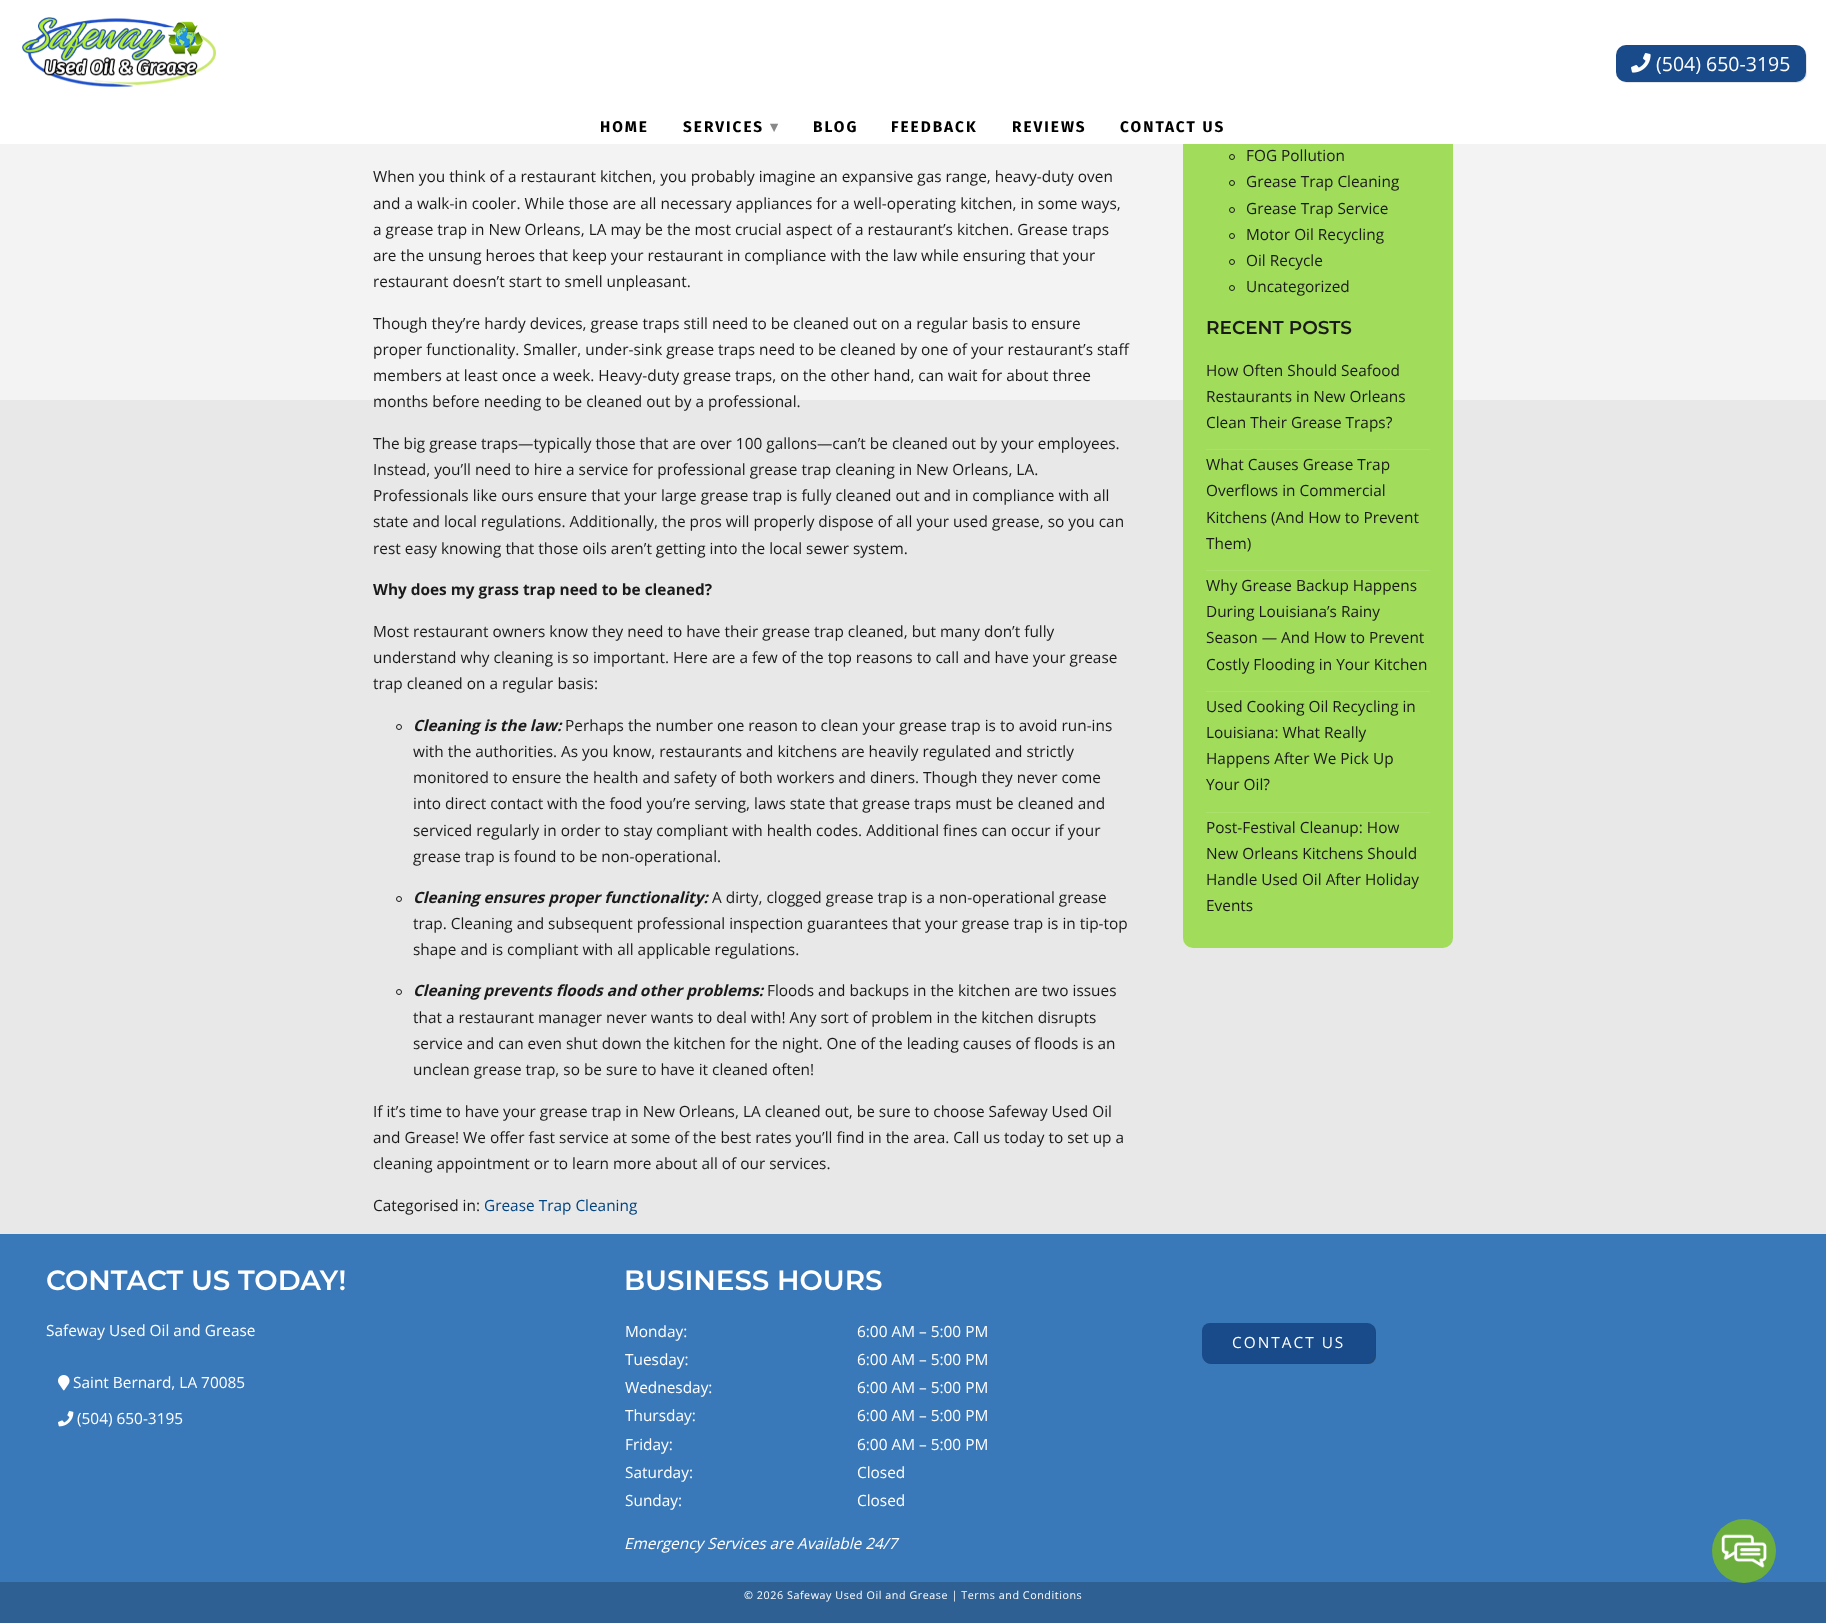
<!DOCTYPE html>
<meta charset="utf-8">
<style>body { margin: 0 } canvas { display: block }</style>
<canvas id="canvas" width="1826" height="1623"></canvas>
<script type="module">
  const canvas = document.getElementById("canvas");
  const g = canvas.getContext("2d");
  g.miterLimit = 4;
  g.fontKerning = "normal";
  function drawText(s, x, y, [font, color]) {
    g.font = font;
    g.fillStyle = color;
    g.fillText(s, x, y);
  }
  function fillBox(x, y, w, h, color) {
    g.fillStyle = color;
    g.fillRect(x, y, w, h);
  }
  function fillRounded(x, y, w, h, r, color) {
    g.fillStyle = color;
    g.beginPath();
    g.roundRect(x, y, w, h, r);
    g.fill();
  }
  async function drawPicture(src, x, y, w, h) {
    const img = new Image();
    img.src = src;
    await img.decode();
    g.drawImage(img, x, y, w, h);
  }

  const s1 = ["19.5px Open Sans", "#FFFFFF"];
  const s2 = ["bold 15.4px Fira Sans", "#000000"];
  const s3 = ["bold 15.4px DejaVu Sans", "#888888"];
  const s4 = ["15.4px Open Sans", "#1A1A1A"];
  const s5 = ["bold 15.4px Open Sans", "#1A1A1A"];
  const s6 = ["italic bold 15.4px Open Sans", "#1A1A1A"];
  const s7 = ["15.4px Open Sans", "#00437F"];
  const s8 = ["600 18.5px Montserrat", "#1A1A1A"];
  const s9 = ["600 27.75px Montserrat", "#FFFFFF"];
  const s10 = ["15.4px Open Sans", "#FFFFFF"];
  const s11 = ["italic 15.4px Open Sans", "#FFFFFF"];
  const s12 = ["10.75px Open Sans", "#FFFFFF"];

  fillBox(0, 0, 1826, 1623, "#E8E8E8");
  fillBox(0, 144, 1826, 256, "#F3F3F3");
  fillRounded(1183, 20, 270, 928, 10, "#A1DD5B");
  fillBox(0, 0, 1826, 144, "#FFFFFF");
  await drawPicture("pic1.png", 22, 17, 194, 70);
  g.fillStyle = "rgba(0, 0, 0, 0.1)";
  g.filter = "blur(0.5px)";
  g.beginPath();
  g.roundRect(1617, 46, 190, 37, 10);
  g.fill();
  g.filter = "none";
  fillRounded(1616, 45, 190, 37, 10, "#194A8A");
  await drawPicture("pic2.png", 1631, 53, 20, 20);
  drawText("(504) 650-3195", 1656, 71, s1);
  g.letterSpacing = "2px";
  drawText("HOME", 600, 132, s2);
  drawText("SERVICES", 683, 132, s2);
  drawText("▾", 770, 132, s3);
  drawText("BLOG", 813, 132, s2);
  drawText("FEEDBACK", 891, 132, s2);
  drawText("REVIEWS", 1012, 132, s2);
  drawText("CONTACT US", 1120, 132, s2);
  g.letterSpacing = "0px";
  drawText("When you think of a restaurant kitchen, you probably imagine an expansive gas range, heavy-duty oven", 373, 182, s4);
  drawText("and a walk-in cooler. While those are all necessary appliances for a well-operating kitchen, in some ways,", 373, 209, s4);
  drawText("a grease trap in New Orleans, LA may be the most crucial aspect of a restaurant’s kitchen. Grease traps", 373, 235, s4);
  drawText("are the unsung heroes that keep your restaurant in compliance with the law while ensuring that your", 373, 261, s4);
  drawText("restaurant doesn’t start to smell unpleasant.", 373, 287, s4);
  drawText("Though they’re hardy devices, grease traps still need to be cleaned out on a regular basis to ensure", 373, 329, s4);
  drawText("proper functionality. Smaller, under-sink grease traps need to be cleaned by one of your restaurant’s staff", 373, 355, s4);
  drawText("members at least once a week. Heavy-duty grease traps, on the other hand, can wait for about three", 373, 381, s4);
  drawText("months before needing to be cleaned out by a professional.", 373, 407, s4);
  drawText("The big grease traps—typically those that are over 100 gallons—can’t be cleaned out by your employees.", 373, 449, s4);
  drawText("Instead, you’ll need to hire a service for professional grease trap cleaning in New Orleans, LA.", 373, 475, s4);
  drawText("Professionals like ours ensure that your large grease trap is fully cleaned out and in compliance with all", 373, 501, s4);
  drawText("state and local regulations. Additionally, the pros will properly dispose of all your used grease, so you can", 373, 527, s4);
  drawText("rest easy knowing that those oils aren’t getting into the local sewer system.", 373, 554, s4);
  drawText("Why does my grass trap need to be cleaned?", 373, 595, s5);
  drawText("Most restaurant owners know they need to have their grease trap cleaned, but many don’t fully", 373, 637, s4);
  drawText("understand why cleaning is so important. Here are a few of the top reasons to call and have your grease", 373, 663, s4);
  drawText("trap cleaned on a regular basis:", 373, 689, s4);
  g.beginPath();
  g.arc(399, 727, 2.5, 0, Math.PI * 2);
  g.strokeStyle = "#1A1A1A";
  g.stroke();
  drawText("Cleaning is the law:", 413, 731, s6);
  drawText("Perhaps the number one reason to clean your grease trap is to avoid run-ins", 565, 731, s4);
  drawText("with the authorities. As you know, restaurants and kitchens are heavily regulated and strictly", 413, 757, s4);
  drawText("monitored to ensure the health and safety of both workers and diners. Though they never come", 413, 783, s4);
  drawText("into direct contact with the food you’re serving, laws state that grease traps must be cleaned and", 413, 809, s4);
  drawText("serviced regularly in order to stay compliant with health codes. Additional fines can occur if your", 413, 836, s4);
  drawText("grease trap is found to be non-operational.", 413, 862, s4);
  g.beginPath();
  g.arc(399, 899, 2.5, 0, Math.PI * 2);
  g.stroke();
  drawText("Cleaning ensures proper functionality:", 413, 903, s6);
  drawText("A dirty, clogged grease trap is a non-operational grease", 712, 903, s4);
  drawText("trap. Cleaning and subsequent professional inspection guarantees that your grease trap is in tip-top", 413, 929, s4);
  drawText("shape and is compliant with all applicable regulations.", 413, 955, s4);
  g.beginPath();
  g.arc(399, 992, 2.5, 0, Math.PI * 2);
  g.stroke();
  drawText("Cleaning prevents floods and other problems:", 413, 996, s6);
  drawText("Floods and backups in the kitchen are two issues", 767, 996, s4);
  drawText("that a restaurant manager never wants to deal with! Any sort of problem in the kitchen disrupts", 413, 1023, s4);
  drawText("service and can even shut down the kitchen for the night. One of the leading causes of floods is an", 413, 1049, s4);
  drawText("unclean grease trap, so be sure to have it cleaned often!", 413, 1075, s4);
  drawText("If it’s time to have your grease trap in New Orleans, LA cleaned out, be sure to choose Safeway Used Oil", 373, 1117, s4);
  drawText("and Grease! We offer fast service at some of the best rates you’ll find in the area. Call us today to set up a", 373, 1143, s4);
  drawText("cleaning appointment or to learn more about all of our services.", 373, 1169, s4);
  drawText("Categorised in:", 373, 1211, s4);
  drawText("Grease Trap Cleaning", 484, 1211, s7);
  g.beginPath();
  g.arc(1232, 157, 2.5, 0, Math.PI * 2);
  g.stroke();
  drawText("FOG Pollution", 1246, 161, s4);
  g.beginPath();
  g.arc(1232, 183, 2.5, 0, Math.PI * 2);
  g.stroke();
  drawText("Grease Trap Cleaning", 1246, 187, s4);
  g.beginPath();
  g.arc(1232, 210, 2.5, 0, Math.PI * 2);
  g.stroke();
  drawText("Grease Trap Service", 1246, 214, s4);
  g.beginPath();
  g.arc(1232, 236, 2.5, 0, Math.PI * 2);
  g.stroke();
  drawText("Motor Oil Recycling", 1246, 240, s4);
  g.beginPath();
  g.arc(1232, 262, 2.5, 0, Math.PI * 2);
  g.stroke();
  drawText("Oil Recycle", 1246, 266, s4);
  g.beginPath();
  g.arc(1232, 288, 2.5, 0, Math.PI * 2);
  g.stroke();
  drawText("Uncategorized", 1246, 292, s4);
  drawText("RECENT POSTS", 1206, 334, s8);
  drawText("How Often Should Seafood", 1206, 376, s4);
  drawText("Restaurants in New Orleans", 1206, 402, s4);
  drawText("Clean Their Grease Traps?", 1206, 428, s4);
  fillBox(1206, 449, 224, 1, "#AAE06B");
  drawText("What Causes Grease Trap", 1206, 470, s4);
  drawText("Overflows in Commercial", 1206, 496, s4);
  drawText("Kitchens (And How to Prevent", 1206, 523, s4);
  drawText("Them)", 1206, 549, s4);
  fillBox(1206, 570, 224, 1, "#AAE06B");
  drawText("Why Grease Backup Happens", 1206, 591, s4);
  drawText("During Louisiana’s Rainy", 1206, 617, s4);
  drawText("Season — And How to Prevent", 1206, 643, s4);
  drawText("Costly Flooding in Your Kitchen", 1206, 670, s4);
  fillBox(1206, 691, 224, 1, "#AAE06B");
  drawText("Used Cooking Oil Recycling in", 1206, 712, s4);
  drawText("Louisiana: What Really", 1206, 738, s4);
  drawText("Happens After We Pick Up", 1206, 764, s4);
  drawText("Your Oil?", 1206, 790, s4);
  fillBox(1206, 812, 224, 1, "#AAE06B");
  drawText("Post-Festival Cleanup: How", 1206, 833, s4);
  drawText("New Orleans Kitchens Should", 1206, 859, s4);
  drawText("Handle Used Oil After Holiday", 1206, 885, s4);
  drawText("Events", 1206, 911, s4);
  fillBox(0, 1234, 1826, 348, "#3978B9");
  drawText("CONTACT US TODAY!", 46, 1290, s9);
  drawText("Safeway Used Oil and Grease", 46, 1336, s10);
  await drawPicture("pic3.png", 58, 1375, 12, 16);
  drawText("Saint Bernard, LA 70085", 73, 1388, s10);
  await drawPicture("pic4.png", 58, 1411, 16, 16);
  drawText("(504) 650-3195", 77, 1424, s10);
  drawText("BUSINESS HOURS", 624, 1290, s9);
  drawText("Monday:", 625, 1337, s10);
  drawText("6:00 AM – 5:00 PM", 857, 1337, s10);
  drawText("Tuesday:", 625, 1365, s10);
  drawText("6:00 AM – 5:00 PM", 857, 1365, s10);
  drawText("Wednesday:", 625, 1393, s10);
  drawText("6:00 AM – 5:00 PM", 857, 1393, s10);
  drawText("Thursday:", 625, 1421, s10);
  drawText("6:00 AM – 5:00 PM", 857, 1421, s10);
  drawText("Friday:", 625, 1450, s10);
  drawText("6:00 AM – 5:00 PM", 857, 1450, s10);
  drawText("Saturday:", 625, 1478, s10);
  drawText("Closed", 857, 1478, s10);
  drawText("Sunday:", 625, 1506, s10);
  drawText("Closed", 857, 1506, s10);
  drawText("Emergency Services are Available 24/7", 624, 1549, s11);
  g.fillStyle = "rgba(0, 0, 0, 0.4)";
  g.filter = "blur(0.5px)";
  g.beginPath();
  g.roundRect(1203, 1324, 173, 40, 8);
  g.fill();
  g.filter = "none";
  fillRounded(1202, 1323, 173, 40, 8, "#194A8A");
  g.letterSpacing = "2px";
  drawText("CONTACT US", 1232, 1348, s10);
  fillBox(0, 1582, 1826, 41, "#2E6094");
  g.letterSpacing = "0.55px";
  drawText("© 2026 Safeway Used Oil and Grease | Terms and Conditions", 744, 1599, s12);
  g.fillStyle = "#6BAE3D";
  g.beginPath();
  g.arc(1744, 1551, 32, 0, Math.PI * 2);
  g.fill();
  await drawPicture("pic5.png", 1721, 1534, 46, 34);
</script>
